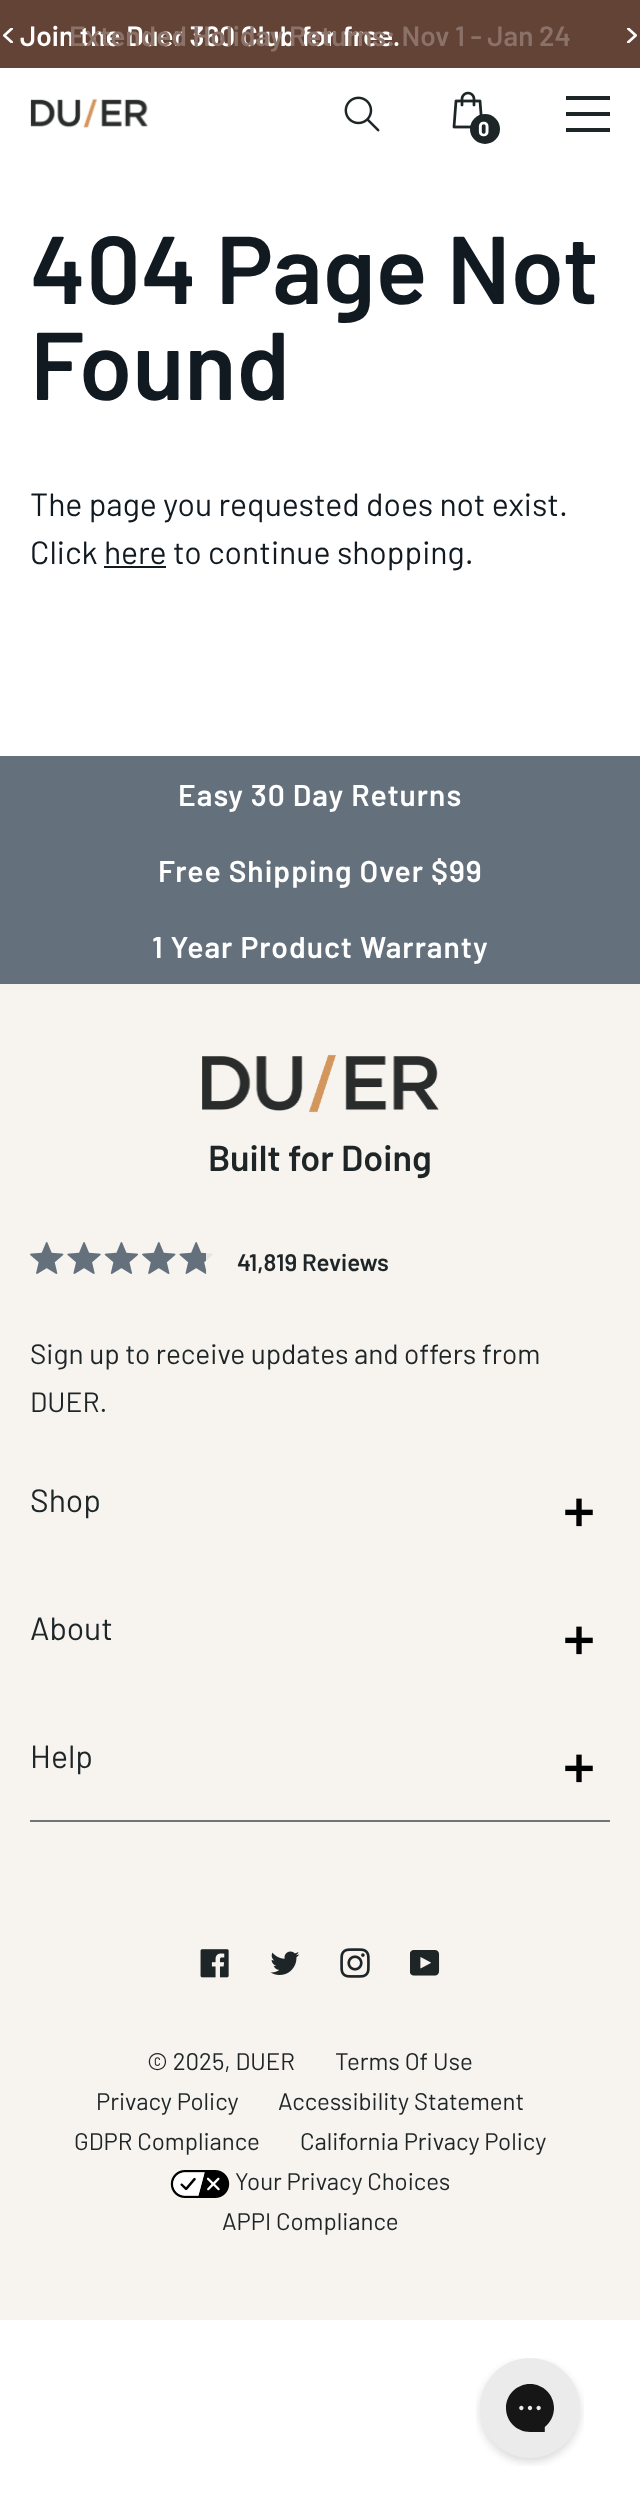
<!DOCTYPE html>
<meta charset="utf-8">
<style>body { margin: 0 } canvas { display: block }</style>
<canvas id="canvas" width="640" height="2511"></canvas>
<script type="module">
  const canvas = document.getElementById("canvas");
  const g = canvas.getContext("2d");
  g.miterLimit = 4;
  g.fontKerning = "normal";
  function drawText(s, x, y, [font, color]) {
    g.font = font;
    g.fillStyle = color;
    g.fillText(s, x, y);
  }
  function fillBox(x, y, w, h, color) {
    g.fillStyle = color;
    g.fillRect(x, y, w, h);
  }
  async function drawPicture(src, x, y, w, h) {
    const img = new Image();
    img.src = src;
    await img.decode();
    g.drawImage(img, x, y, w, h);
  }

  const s1 = ["600 28px Barlow", "#FFFFFF"];
  const s2 = ["600 28px Barlow", "#8B7269"];
  const s3 = ["bold 20px Barlow", "#FFFFFF"];
  const s4 = ["600 96px Barlow", "#111921"];
  const s5 = ["32px Barlow", "#111921"];
  const s6 = ["600 30px Barlow", "#FFFFFF"];
  const s7 = ["600 36px Barlow", "#1E2527"];
  const s8 = ["600 24px Barlow", "#1E2527"];
  const s9 = ["28px Barlow", "#1E2527"];
  const s10 = ["32px Barlow", "#1E2527"];
  const s11 = ["24px Barlow", "#1E2527"];

  fillBox(0, 0, 640, 2511, "#FFFFFF");
  fillBox(0, 0, 640, 68, "#644337");
  drawText("Join the Duer 360 Club for free.", 20, 46, s1);
  drawText("Extended Holiday Returns: Nov 1 - Jan 24", 69, 46, s2);
  await drawPicture("pic1.png", 2, 28, 12, 15);
  await drawPicture("pic2.png", 626, 28, 12, 15);
  await drawPicture("pic3.png", 30, 98, 118, 30);
  await drawPicture("pic4.png", 344, 96, 36, 36);
  await drawPicture("pic5.png", 452, 91, 31, 38);
  g.fillStyle = "#1E2527";
  g.beginPath();
  g.arc(485, 129, 15, 0, Math.PI * 2);
  g.fill();
  drawText("0", 478, 136, s3);
  fillBox(566, 112, 44, 4, "#1E2527");
  fillBox(566, 96, 44, 4, "#1E2527");
  fillBox(566, 128, 44, 4, "#1E2527");
  drawText("404 Page Not", 30, 304, s4);
  drawText("Found", 30, 400, s4);
  drawText("The page you requested does not exist.", 30, 516, s5);
  drawText("Click here to continue shopping.", 30, 564, s5);
  fillBox(104, 566, 62, 2, "#111921");
  fillBox(0, 756, 640, 228, "#64707B");
  g.letterSpacing = "1px";
  drawText("Easy 30 Day Returns", 178, 806, s6);
  drawText("Free Shipping Over $99", 158, 882, s6);
  drawText("1 Year Product Warranty", 152, 958, s6);
  fillBox(0, 984, 640, 1336, "#F7F3EF");
  await drawPicture("pic6.png", 202, 1054, 237, 59);
  g.letterSpacing = "0px";
  drawText("Built for Doing", 208, 1171, s7);
  await drawPicture("pic7.png", 30, 1242, 183, 32);
  await drawPicture("pic8.png", 30, 1242, 176, 32);
  drawText("41,819 Reviews", 237, 1271, s8);
  drawText("Sign up to receive updates and offers from", 30, 1364, s9);
  drawText("DUER.", 30, 1412, s9);
  drawText("Shop", 30, 1512, s10);
  await drawPicture("pic9.png", 565, 1498, 28, 29);
  drawText("About", 30, 1640, s10);
  await drawPicture("pic9.png", 565, 1626, 28, 29);
  fillBox(30, 1820, 580, 2, "#707479");
  drawText("Help", 30, 1768, s10);
  await drawPicture("pic9.png", 565, 1754, 28, 29);
  await drawPicture("pic10.png", 200, 1949, 29, 29);
  await drawPicture("pic11.png", 270, 1951, 30, 24);
  await drawPicture("pic12.png", 340, 1948, 30, 30);
  await drawPicture("pic13.png", 410, 1950, 30, 26);
  drawText("© 2025, DUER", 147, 2070, s11);
  drawText("Terms Of Use", 335, 2070, s11);
  drawText("Privacy Policy", 96, 2110, s11);
  drawText("Accessibility Statement", 278, 2110, s11);
  drawText("GDPR Compliance", 74, 2150, s11);
  drawText("California Privacy Policy", 300, 2150, s11);
  await drawPicture("pic14.png", 170, 2170, 60, 28);
  drawText("Your Privacy Choices", 235, 2190, s11);
  drawText("APPI Compliance", 222, 2230, s11);
  await drawPicture("pic15.png", 476, 2358, 108, 108);
</script>
